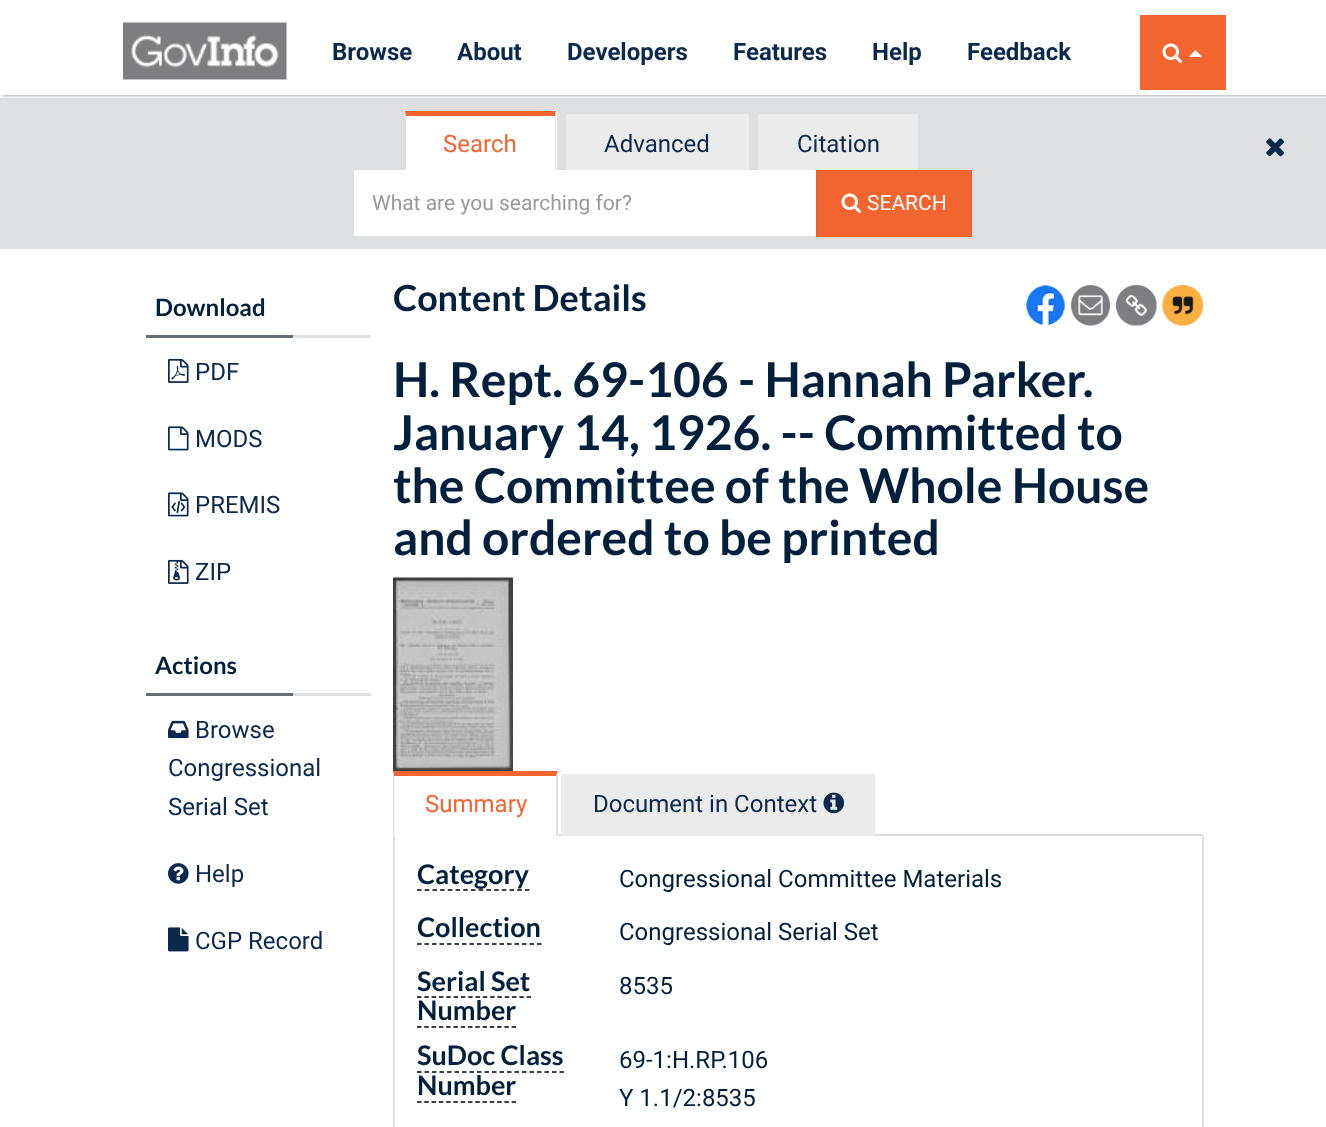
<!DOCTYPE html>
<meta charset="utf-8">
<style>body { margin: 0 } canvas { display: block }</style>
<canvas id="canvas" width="1326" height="1127"></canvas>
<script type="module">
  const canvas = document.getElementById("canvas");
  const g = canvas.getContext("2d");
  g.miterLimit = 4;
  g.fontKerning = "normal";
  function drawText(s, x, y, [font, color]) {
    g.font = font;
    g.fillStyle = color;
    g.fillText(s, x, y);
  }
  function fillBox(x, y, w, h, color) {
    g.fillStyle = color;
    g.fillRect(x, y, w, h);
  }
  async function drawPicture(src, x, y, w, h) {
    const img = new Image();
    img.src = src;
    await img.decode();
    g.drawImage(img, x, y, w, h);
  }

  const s1 = ["bold 24px Roboto", "#0B294D"];
  const s2 = ["24px Roboto", "#F26531"];
  const s3 = ["24px Roboto", "#0B294D"];
  const s4 = ["21px Roboto", "#999999"];
  const s5 = ["21px Roboto", "#FFFFFF"];
  const s6 = ["bold 24px Lato", "#01203B"];
  const s7 = ["bold 36px Lato", "#01203B"];
  const s8 = ["bold 48px Lato", "#01203B"];
  const s9 = ["bold 27px Lato", "#01203B"];
  const s10 = ["24px Roboto", "#01203B"];

  fillBox(0, 0, 1326, 1127, "#FFFFFF");
  fillBox(0, 98, 1326, 151, "#DEDFE1");
  g.fillStyle = "#ACACAE";
  g.filter = "blur(1.5px)";
  g.beginPath();
  g.rect(2, 2, 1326, 94);
  g.fill();
  g.filter = "none";
  fillBox(0, 0, 1326, 95, "#FFFFFF");
  await drawPicture("pic1.png", 123, 22, 164, 58);
  drawText("Browse", 332, 60, s1);
  drawText("About", 457, 60, s1);
  drawText("Developers", 567, 60, s1);
  drawText("Features", 733, 60, s1);
  drawText("Help", 872, 60, s1);
  drawText("Feedback", 967, 60, s1);
  fillBox(1140, 15, 86, 75, "#F26531");
  await drawPicture("pic2.png", 1162, 43, 20, 20);
  await drawPicture("pic3.png", 1189, 50, 13, 7);
  fillBox(23, 168, 1281, 2, "#DDDDDD");
  fillBox(405, 111, 152, 59, "#FFFFFF");
  g.fillStyle = "#F26531";
  g.beginPath();
  g.moveTo(405, 111);
  g.lineTo(556, 111);
  g.lineTo(555, 116);
  g.lineTo(406, 116);
  g.closePath();
  g.fill();
  g.fillStyle = "#DDDDDD";
  g.beginPath();
  g.moveTo(556, 111);
  g.lineTo(556, 176);
  g.lineTo(555, 174);
  g.lineTo(555, 116);
  g.closePath();
  g.fill();
  g.beginPath();
  g.moveTo(405, 176);
  g.lineTo(405, 111);
  g.lineTo(406, 116);
  g.lineTo(406, 174);
  g.closePath();
  g.fill();
  drawText("Search", 443, 152, s2);
  fillBox(566, 114, 183, 56, "#EBEBEB");
  drawText("Advanced", 604, 152, s3);
  fillBox(758, 114, 160, 56, "#EBEBEB");
  drawText("Citation", 797, 152, s3);
  fillBox(354, 170, 462, 66, "#FFFFFF");
  drawText("What are you searching for?", 372, 210, s4);
  g.fillStyle = "#F26531";
  g.beginPath();
  g.rect(817, 171, 154, 65);
  g.fill();
  g.strokeStyle = "#EC622F";
  g.lineWidth = 2;
  g.stroke();
  await drawPicture("pic2.png", 841, 193, 20, 20);
  drawText("SEARCH", 867, 210, s5);
  await drawPicture("pic4.png", 1266, 138, 18, 19);
  fillBox(293, 335, 78, 3, "#DEDFE1");
  drawText("Download", 155, 316, s6);
  fillBox(146, 335, 147, 3, "#666E75");
  await drawPicture("pic5.png", 168, 358, 21, 25);
  drawText("PDF", 195, 380, s3);
  await drawPicture("pic6.png", 168, 426, 21, 25);
  drawText("MODS", 195, 447, s3);
  await drawPicture("pic7.png", 168, 492, 21, 25);
  drawText("PREMIS", 195, 513, s3);
  await drawPicture("pic8.png", 168, 559, 21, 25);
  drawText("ZIP", 195, 580, s3);
  fillBox(293, 693, 78, 3, "#DEDFE1");
  drawText("Actions", 155, 674, s6);
  fillBox(146, 693, 147, 3, "#666E75");
  await drawPicture("pic9.png", 168, 720, 21, 18);
  drawText("Browse", 195, 738, s3);
  drawText("Congressional", 168, 776, s3);
  drawText("Serial Set", 168, 815, s3);
  await drawPicture("pic10.png", 168, 863, 21, 21);
  drawText("Help", 195, 882, s3);
  await drawPicture("pic11.png", 168, 927, 21, 25);
  drawText("CGP Record", 195, 949, s3);
  drawText("Content Details", 393, 311, s7);
  await drawPicture("pic12.png", 1026, 285, 39, 41);
  await drawPicture("pic13.png", 1071, 285, 39, 41);
  await drawPicture("pic14.png", 1116, 285, 41, 41);
  await drawPicture("pic15.png", 1162, 285, 41, 41);
  drawText("H. Rept. 69-106 - Hannah Parker.", 393, 397, s8);
  drawText("January 14, 1926. -- Committed to", 393, 450, s8);
  drawText("the Committee of the Whole House", 393, 503, s8);
  drawText("and ordered to be printed", 393, 555, s8);
  await drawPicture("pic16.png", 393, 577, 120, 194);
  fillBox(558, 834, 645, 2, "#DDDDDD");
  g.fillStyle = "#F26531";
  g.beginPath();
  g.moveTo(393, 771);
  g.lineTo(558, 771);
  g.lineTo(556, 776);
  g.lineTo(394, 776);
  g.closePath();
  g.fill();
  g.fillStyle = "#DDDDDD";
  g.beginPath();
  g.moveTo(558, 771);
  g.lineTo(558, 836);
  g.lineTo(556, 834);
  g.lineTo(556, 776);
  g.closePath();
  g.fill();
  g.beginPath();
  g.moveTo(393, 836);
  g.lineTo(393, 771);
  g.lineTo(394, 776);
  g.lineTo(394, 834);
  g.closePath();
  g.fill();
  drawText("Summary", 425, 812, s2);
  fillBox(561, 774, 314, 62, "#EBEBEB");
  drawText("Document in Context", 593, 812, s3);
  await drawPicture("pic17.png", 823, 792, 22, 22);
  fillBox(1202, 836, 2, 291, "#DDDDDD");
  fillBox(393, 836, 2, 291, "#DDDDDD");
  drawText("Category", 417, 884, s9);
  g.beginPath();
  g.moveTo(417, 890);
  g.lineTo(529.5, 890);
  g.strokeStyle = "#000000";
  g.lineWidth = 1.5;
  g.setLineDash([4.5, 3.21]);
  g.stroke();
  drawText("Congressional Committee Materials", 619, 887, s10);
  drawText("Collection", 417, 937, s9);
  g.beginPath();
  g.moveTo(417, 944);
  g.lineTo(541.5, 944);
  g.setLineDash([4.5, 3]);
  g.stroke();
  drawText("Congressional Serial Set", 619, 940, s10);
  drawText("Serial Set", 417, 991, s9);
  drawText("Number", 417, 1020, s9);
  g.beginPath();
  g.moveTo(417, 997);
  g.lineTo(531, 997);
  g.setLineDash([4.5, 2.81]);
  g.stroke();
  g.beginPath();
  g.moveTo(417, 1027);
  g.lineTo(516, 1027);
  g.setLineDash([4.5, 2.78]);
  g.stroke();
  drawText("8535", 619, 994, s10);
  drawText("SuDoc Class", 417, 1065, s9);
  drawText("Number", 417, 1095, s9);
  g.beginPath();
  g.moveTo(417, 1072);
  g.lineTo(564, 1072);
  g.setLineDash([4.5, 3]);
  g.stroke();
  g.beginPath();
  g.moveTo(417, 1102);
  g.lineTo(516, 1102);
  g.setLineDash([4.5, 2.78]);
  g.stroke();
  drawText("69-1:H.RP.106", 619, 1068, s10);
  drawText("Y 1.1/2:8535", 619, 1106, s10);
</script>
